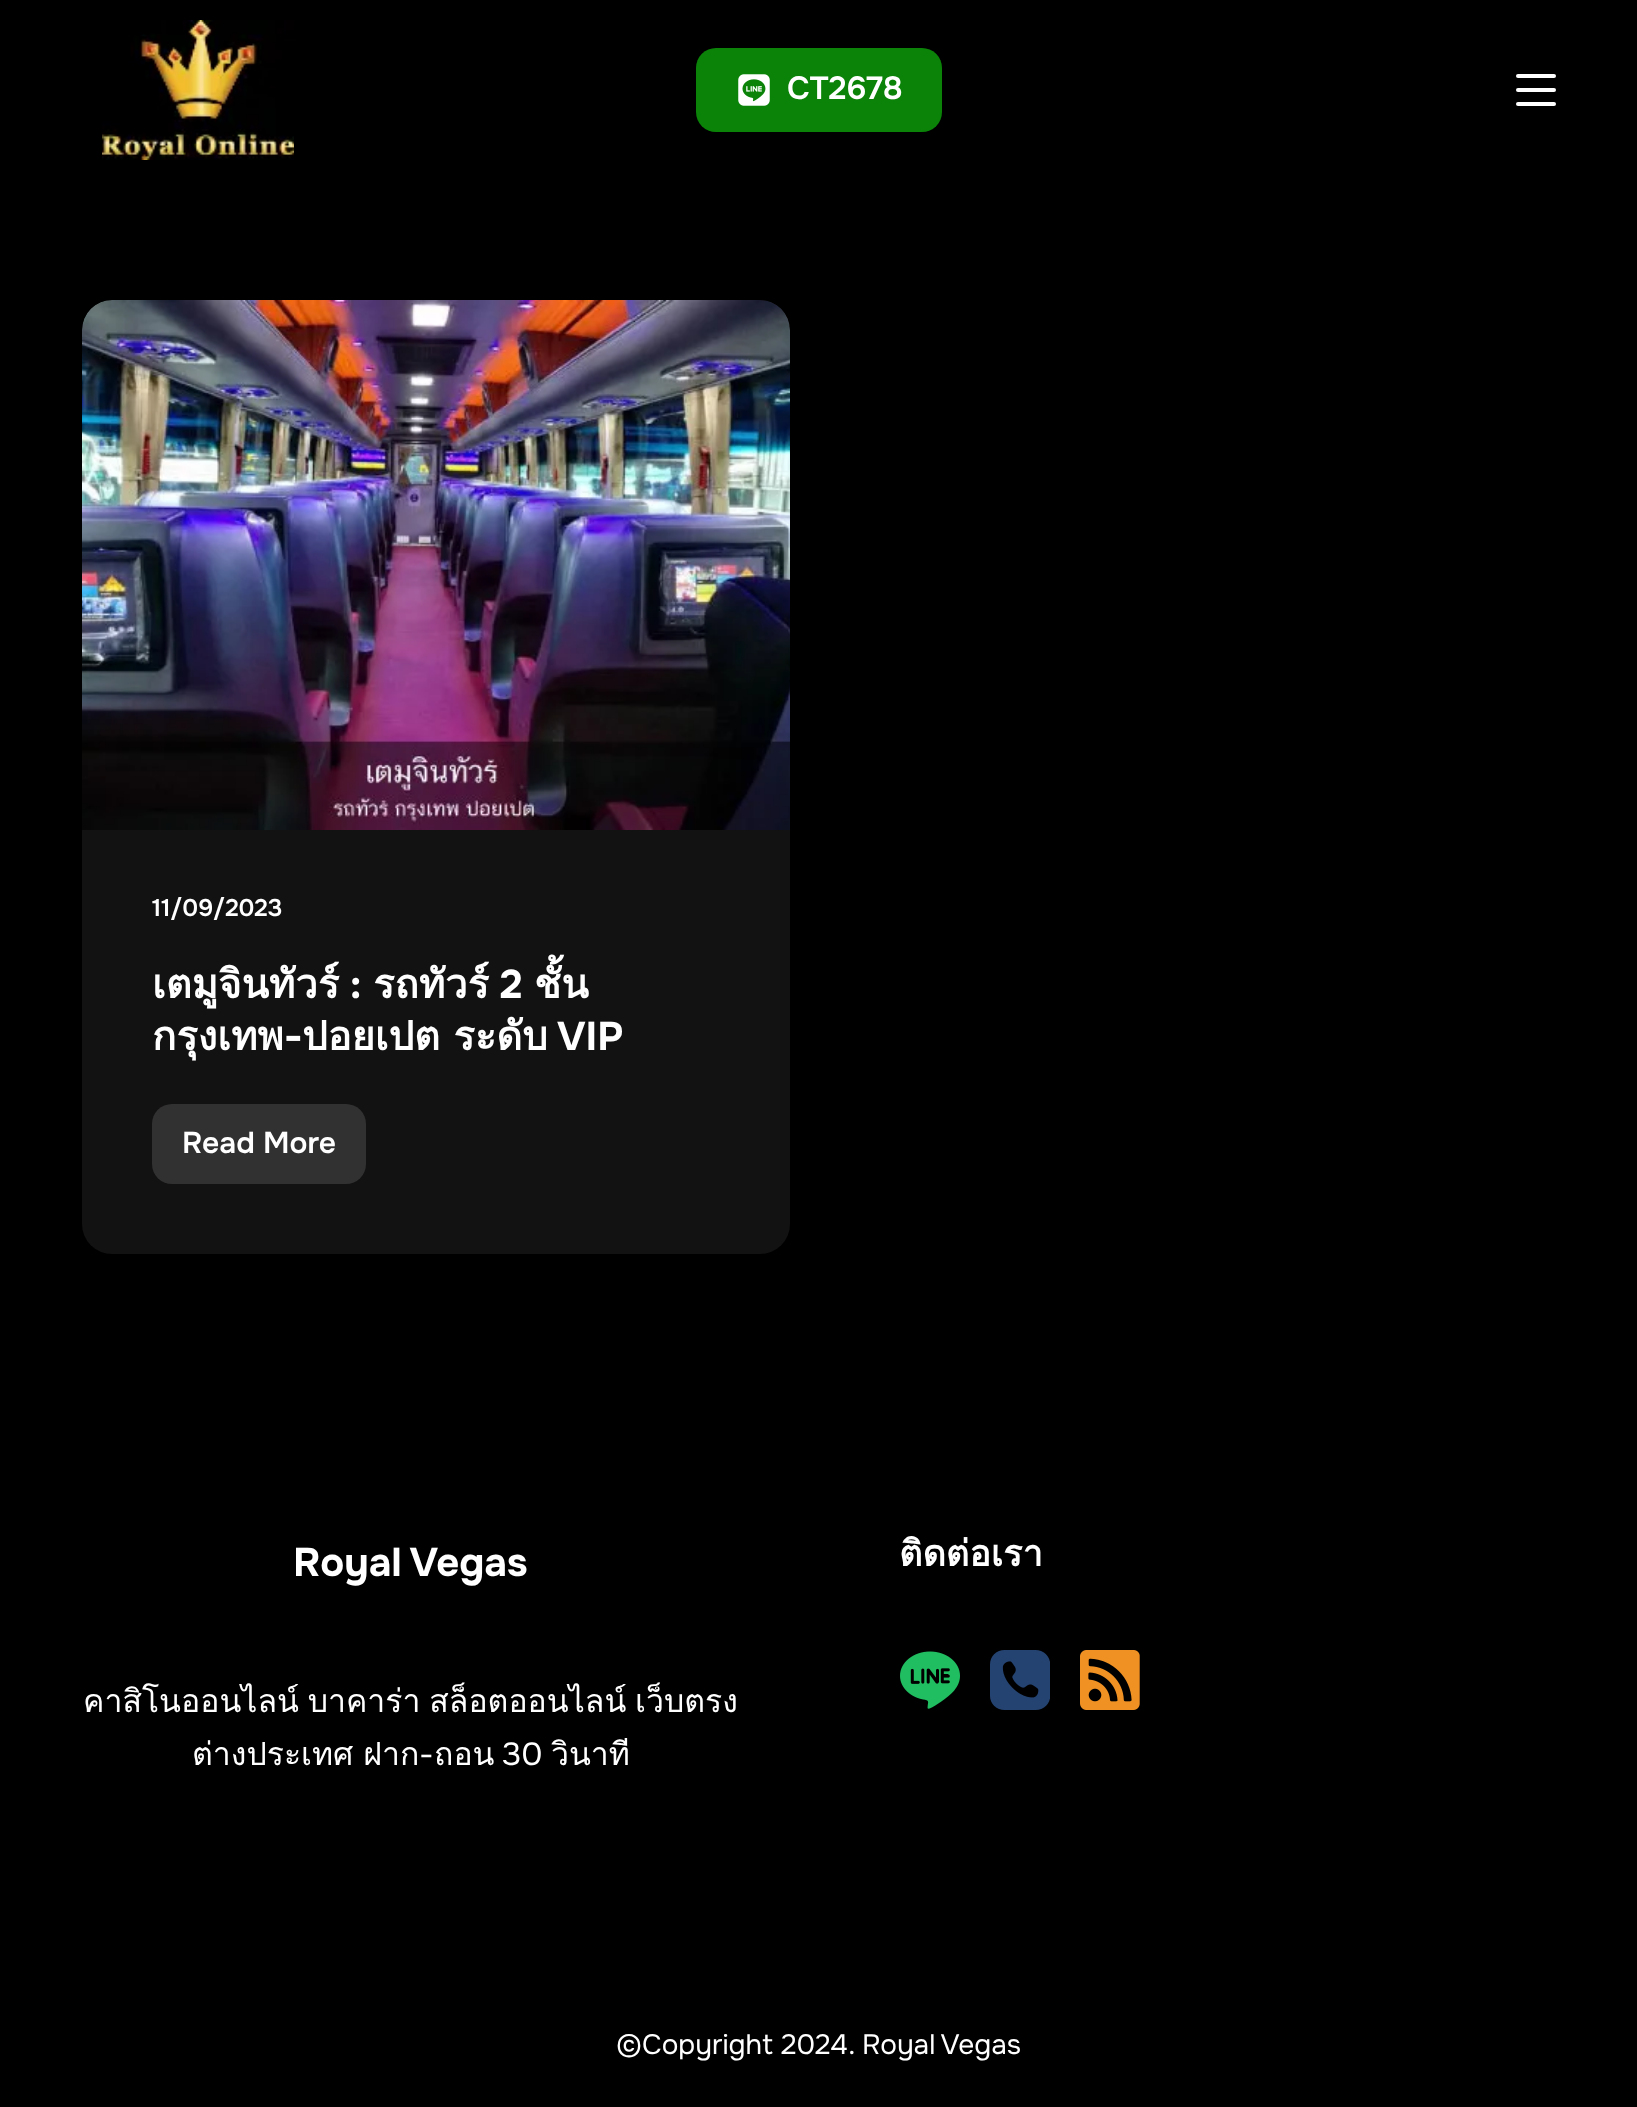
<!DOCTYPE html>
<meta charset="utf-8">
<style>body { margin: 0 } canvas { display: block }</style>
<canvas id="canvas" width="1637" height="2107"></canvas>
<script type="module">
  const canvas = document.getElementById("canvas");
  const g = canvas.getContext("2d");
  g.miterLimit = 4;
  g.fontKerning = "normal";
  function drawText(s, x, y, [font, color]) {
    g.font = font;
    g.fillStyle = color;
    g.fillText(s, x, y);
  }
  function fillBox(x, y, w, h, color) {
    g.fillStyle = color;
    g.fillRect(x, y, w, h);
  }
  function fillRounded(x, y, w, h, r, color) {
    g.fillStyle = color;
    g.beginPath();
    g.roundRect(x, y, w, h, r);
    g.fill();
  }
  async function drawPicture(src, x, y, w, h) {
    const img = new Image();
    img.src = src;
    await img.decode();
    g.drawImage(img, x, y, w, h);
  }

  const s1 = ["600 32px Onest", "#FFFFFF"];
  const s2 = ["600 24px Onest", "#FFFFFF"];
  const s3 = ["bold 40px Loma", "#FFFFFF"];
  const s4 = ["bold 40px Onest", "#FFFFFF"];
  const s5 = ["600 30px Onest", "#FFFFFF"];
  const s6 = ["32px Loma", "#FFFFFF"];
  const s7 = ["32px Onest", "#FFFFFF"];
  const s8 = ["bold 36px Loma", "#FFFFFF"];
  const s9 = ["28px Onest", "#FFFFFF"];

  fillBox(0, 0, 1637, 2107, "#000000");
  await drawPicture("pic1.png", 102, 20, 192, 140);
  fillRounded(696, 48, 246, 84, 20, "#0A8308");
  await drawPicture("pic2.png", 738, 74, 32, 32);
  drawText("CT2678", 787, 99, s1);
  fillRounded(1516, 74, 40, 4, 2, "#FFFFFF");
  fillRounded(1516, 88, 40, 4, 2, "#FFFFFF");
  fillRounded(1516, 102, 40, 4, 2, "#FFFFFF");
  fillRounded(82, 300, 708, 954, 30, "#131212");
  await drawPicture("pic3.png", 82, 300, 708, 530);
  drawText("11/09/2023", 152, 916, s2);
  drawText("เตมูจินทัวร์", 152, 998, s3);
  drawText(":", 350, 998, s4);
  drawText("รถทัวร์", 373, 998, s3);
  drawText("2", 500, 998, s4);
  drawText("ชั้น", 534, 998, s3);
  drawText("กรุงเทพ", 152, 1050, s3);
  drawText("-", 284, 1050, s4);
  drawText("ปอยเปต ระดับ", 302, 1050, s3);
  drawText("VIP", 557, 1050, s4);
  fillRounded(152, 1104, 214, 80, 20, "#323131");
  drawText("Read More", 182, 1153, s5);
  drawText("Royal Vegas", 293, 1576, s4);
  g.wordSpacing = "-2px";
  drawText("คาสิโนออนไลน์ บาคาร่า สล็อตออนไลน์ เว็บตรง", 83, 1712, s6);
  g.wordSpacing = "-1px";
  drawText("ต่างประเทศ ฝาก", 192, 1765, s6);
  g.wordSpacing = "0px";
  drawText("-", 419, 1765, s7);
  drawText("ถอน", 434, 1765, s6);
  drawText("30", 502, 1765, s7);
  drawText("วินาที", 551, 1765, s6);
  drawText("ติดต่อเรา", 899, 1566, s8);
  await drawPicture("pic4.png", 900, 1651, 60, 58);
  await drawPicture("pic5.png", 990, 1650, 60, 60);
  await drawPicture("pic6.png", 1080, 1650, 60, 60);
  drawText("©Copyright 2024. Royal Vegas", 616, 2054, s9);
</script>
